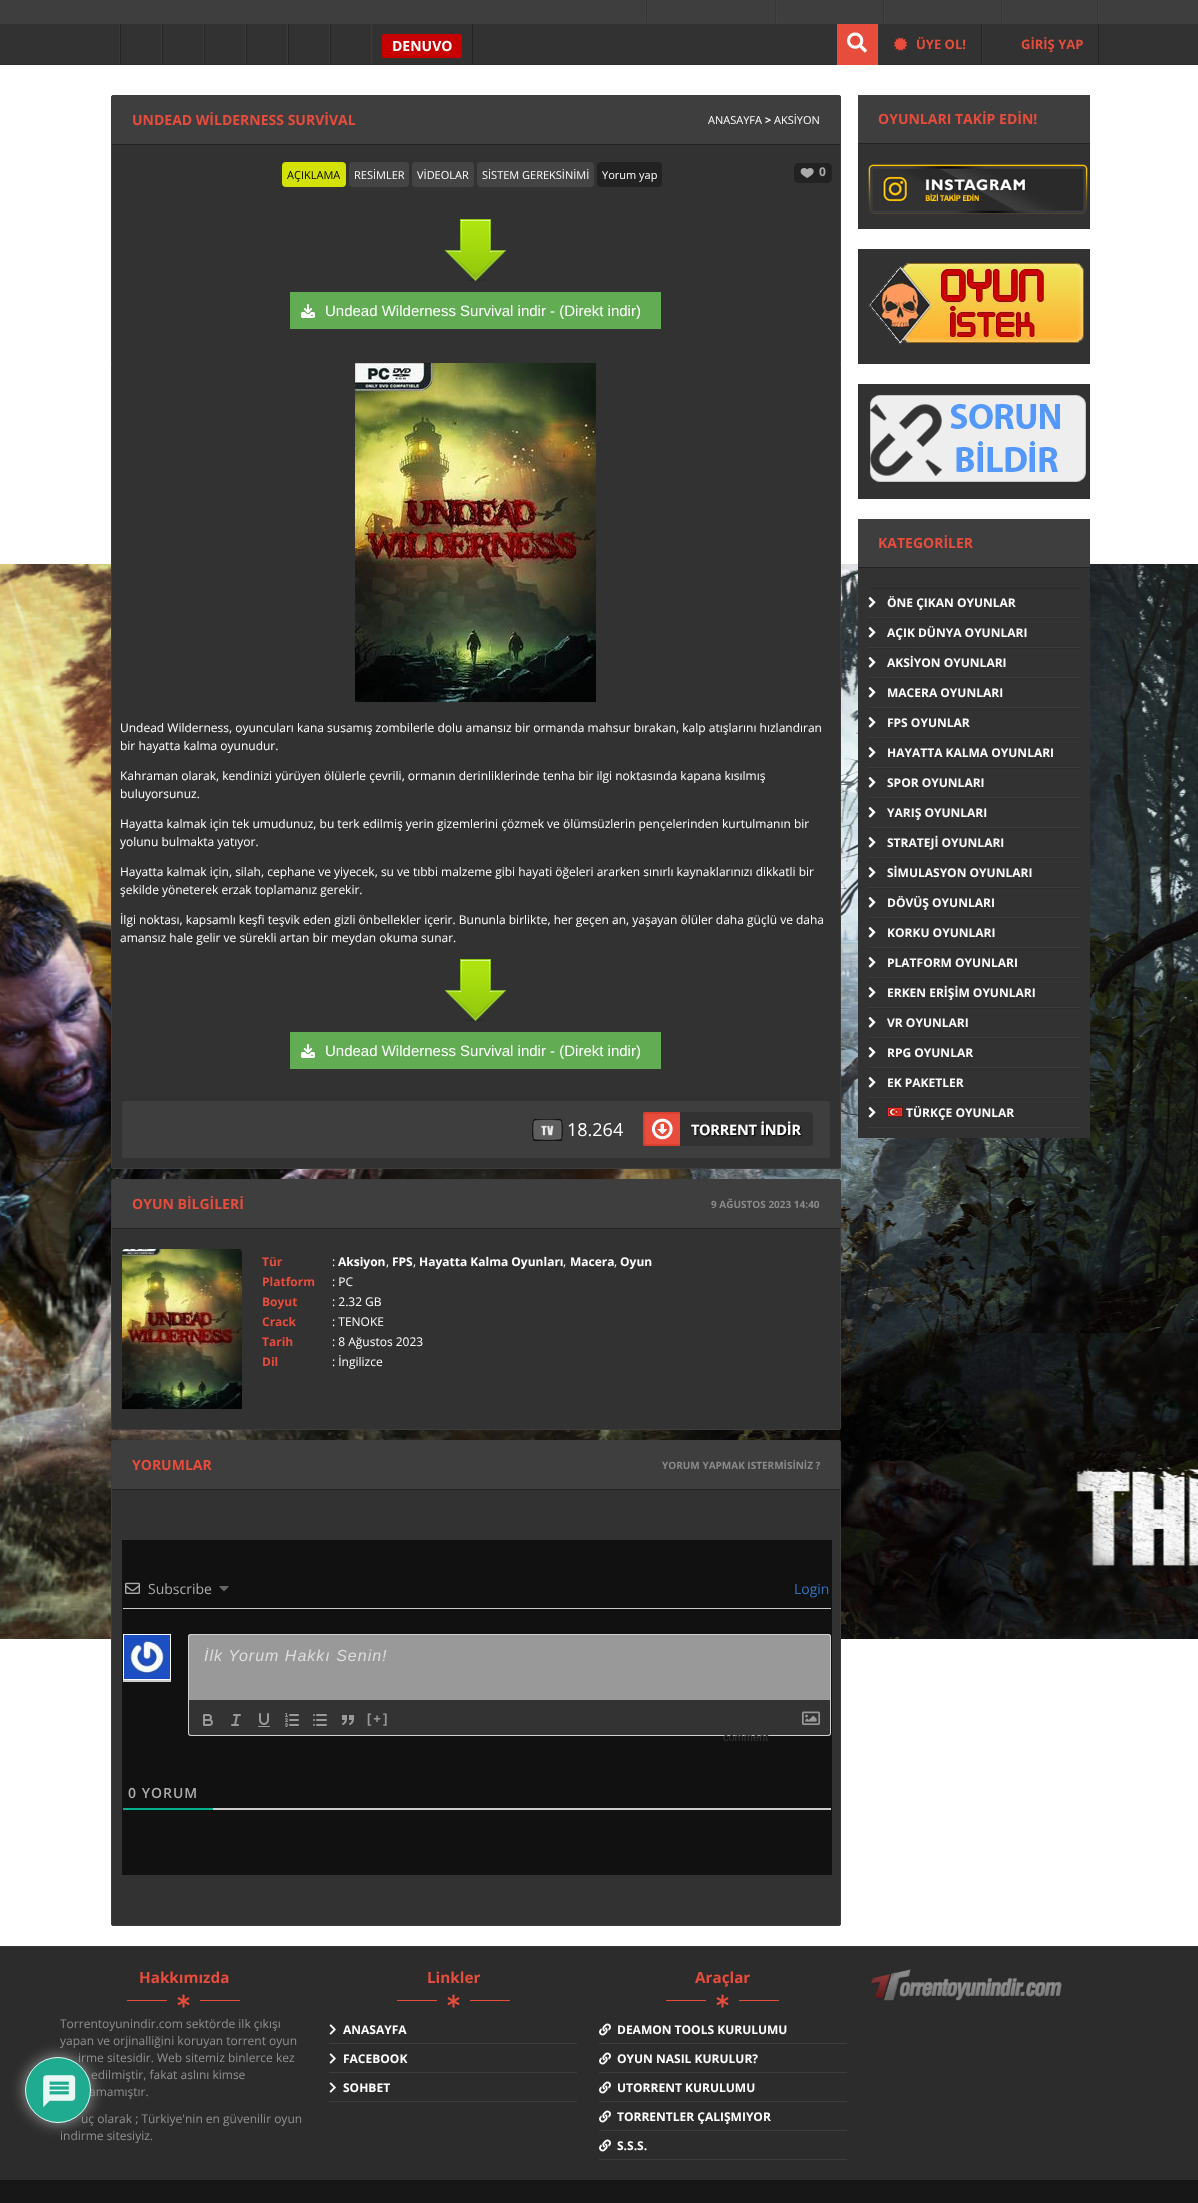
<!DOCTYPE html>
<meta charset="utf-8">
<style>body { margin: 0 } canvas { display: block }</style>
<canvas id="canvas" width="1198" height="2203"></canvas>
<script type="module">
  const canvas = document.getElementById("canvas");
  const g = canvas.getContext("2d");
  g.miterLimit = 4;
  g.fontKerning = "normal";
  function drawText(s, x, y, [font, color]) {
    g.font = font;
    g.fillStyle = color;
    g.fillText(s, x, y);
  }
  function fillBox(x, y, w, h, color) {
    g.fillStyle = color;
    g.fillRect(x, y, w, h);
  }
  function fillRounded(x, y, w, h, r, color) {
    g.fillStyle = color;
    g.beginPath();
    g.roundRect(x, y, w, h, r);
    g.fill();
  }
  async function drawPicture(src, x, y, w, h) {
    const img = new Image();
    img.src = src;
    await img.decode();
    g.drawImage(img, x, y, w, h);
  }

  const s1 = ["bold 14px Open Sans", "#FFFFFF"];
  const s2 = ["bold 13px Open Sans", "#E74C3C"];
  const s3 = ["bold 14px Open Sans", "#E74C3C"];
  const s4 = ["11px Open Sans", "#FFFFFF"];
  const s5 = ["bold 11px Open Sans", "#FFFFFF"];
  const s6 = ["11px Open Sans", "#000000"];
  const s7 = ["bold 12px Open Sans", "#ABABAB"];
  const s8 = ["15px Liberation Sans", "#FFFFFF"];
  const s9 = ["12px Open Sans", "#FFFFFF"];
  const s10 = ["18px Open Sans", "#FFFFFF"];
  const s11 = ["bold 10px Open Sans", "#8A8A8A"];
  const s12 = ["bold 12px Open Sans", "#E74C3C"];
  const s13 = ["bold 12px Open Sans", "#FFFFFF"];
  const s14 = ["14px Open Sans", "#ABABAB"];
  const s15 = ["14px Open Sans", "#3272BF"];
  const s16 = ["italic 16px Liberation Sans", "#DDDDDD"];
  const s17 = ["bold 13px Liberation Sans", "#999999"];
  const s18 = ["11px Liberation Sans", "#393939"];
  const s19 = ["600 14px Open Sans", "#ABABAB"];
  const s20 = ["12px Open Sans", "#909090"];
  const s21 = ["bold 15.25px Open Sans", "#E74C3C"];

  fillBox(0, 0, 1198, 2203, "#FFFFFF");
  await drawPicture("pic1.png", 0, 564, 1198, 1075);
  fillBox(0, 0, 1198, 23, "#3E3E3E");
  fillBox(645, 0, 1, 23, "#424242");
  fillBox(1098, 0, 1, 23, "#424242");
  fillBox(646, 0, 1, 23, "#313131");
  fillBox(775, 0, 1, 23, "#363636");
  fillBox(647, 0, 1, 23, "#424242");
  fillBox(883, 0, 1, 23, "#363636");
  fillBox(776, 0, 1, 23, "#424242");
  fillBox(1001, 0, 1, 23, "#363636");
  fillBox(884, 0, 1, 23, "#424242");
  fillBox(1097, 0, 1, 23, "#363636");
  fillBox(1002, 0, 1, 23, "#424242");
  fillBox(0, 24, 1198, 40, "#323232");
  fillBox(0, 23, 1198, 1, "#3F3F3F");
  fillBox(0, 64, 1198, 1, "#2D2D2D");
  fillBox(472, 24, 1, 40, "#222222");
  fillBox(119, 24, 1, 40, "#3A3A3A");
  fillBox(161, 24, 1, 40, "#3C3C3C");
  fillBox(120, 24, 1, 40, "#252525");
  fillBox(203, 24, 1, 40, "#3C3C3C");
  fillBox(162, 24, 1, 40, "#252525");
  fillBox(245, 24, 1, 40, "#3C3C3C");
  fillBox(204, 24, 1, 40, "#252525");
  fillBox(287, 24, 1, 40, "#3C3C3C");
  fillBox(246, 24, 1, 40, "#252525");
  fillBox(329, 24, 1, 40, "#3C3C3C");
  fillBox(288, 24, 1, 40, "#252525");
  fillBox(371, 24, 1, 40, "#3C3C3C");
  fillBox(330, 24, 1, 40, "#252525");
  fillRounded(382, 34, 80, 24, 2, "#C80000");
  drawText("DENUVO", 392, 51, s1);
  fillBox(837, 24, 41, 41, "#E74C3C");
  await drawPicture("pic2.png", 847, 32, 20, 21);
  fillBox(981, 24, 1, 41, "#242424");
  fillBox(878, 24, 1, 41, "#383838");
  await drawPicture("pic3.png", 894, 37, 13, 14);
  drawText("ÜYE OL!", 916, 49, s2);
  fillBox(1098, 24, 1, 41, "#242424");
  fillBox(982, 24, 1, 41, "#383838");
  drawText("GİRİŞ YAP", 1021, 49, s2);
  g.fillStyle = "#323232";
  g.beginPath();
  g.roundRect(111.5, 95.5, 729, 1073, 1.5);
  g.fill();
  g.strokeStyle = "#3C3C3C";
  g.stroke();
  fillBox(112, 96, 728, 48, "#3E3E3E");
  fillBox(112, 144, 728, 1, "#222222");
  drawText("UNDEAD WİLDERNESS SURVİVAL", 132, 125, s3);
  drawText("ANASAYFA", 708, 124, s4);
  drawText(">", 765, 124, s5);
  drawText("AKSİYON", 774, 124, s4);
  fillRounded(282, 162, 64, 25, 4, "#D4E104");
  drawText("AÇIKLAMA", 287, 179, s6);
  fillRounded(349, 162, 60, 25, 4, "#444444");
  drawText("RESİMLER", 354, 179, s4);
  fillRounded(412, 162, 62, 25, 4, "#444444");
  drawText("VİDEOLAR", 417, 179, s4);
  fillRounded(477, 162, 117, 25, 4, "#444444");
  drawText("SİSTEM GEREKSİNİMİ", 482, 179, s4);
  fillRounded(597, 162, 65, 25, 4, "#222222");
  drawText("Yorum yap", 602, 179, s4);
  await drawPicture("pic4.png", 794, 163, 38, 20);
  drawText("0", 819, 176, s7);
  await drawPicture("pic5.png", 445, 219, 61, 62);
  fillBox(290, 292, 371, 37, "#62AD54");
  await drawPicture("pic6.png", 301, 304, 14, 14);
  drawText("Undead Wilderness Survival indir - (Direkt indir)", 325, 316, s8);
  await drawPicture("pic7.png", 355, 363, 241, 339);
  drawText("Undead Wilderness, oyuncuları kana susamış zombilerle dolu amansız bir ormanda mahsur bırakan, kalp atışlarını hızlandıran", 120, 732, s9);
  drawText("bir hayatta kalma oyunudur.", 120, 750, s9);
  drawText("Kahraman olarak, kendinizi yürüyen ölülerle çevrili, ormanın derinliklerinde tenha bir ilgi noktasında kapana kısılmış", 120, 780, s9);
  drawText("buluyorsunuz.", 120, 798, s9);
  drawText("Hayatta kalmak için tek umudunuz, bu terk edilmiş yerin gizemlerini çözmek ve ölümsüzlerin pençelerinden kurtulmanın bir", 120, 828, s9);
  drawText("yolunu bulmakta yatıyor.", 120, 846, s9);
  drawText("Hayatta kalmak için, silah, cephane ve yiyecek, su ve tıbbi malzeme gibi hayati öğeleri ararken sınırlı kaynaklarınızı dikkatli bir", 120, 876, s9);
  drawText("şekilde yöneterek erzak toplamanız gerekir.", 120, 894, s9);
  drawText("İlgi noktası, kapsamlı keşfi teşvik eden gizli önbellekler içerir. Bununla birlikte, her geçen an, yaşayan ölüler daha güçlü ve daha", 120, 924, s9);
  drawText("amansız hale gelir ve sürekli artan bir meydan okuma sunar.", 120, 942, s9);
  await drawPicture("pic5.png", 445, 959, 61, 62);
  fillBox(290, 1032, 371, 37, "#62AD54");
  await drawPicture("pic6.png", 301, 1044, 14, 14);
  drawText("Undead Wilderness Survival indir - (Direkt indir)", 325, 1056, s8);
  fillRounded(122, 1101, 708, 57, 2, "#3E3E3E");
  await drawPicture("pic8.png", 532, 1119, 31, 22);
  drawText("18.264", 567, 1136, s10);
  await drawPicture("pic9.png", 643, 1112, 170, 34);
  g.fillStyle = "#323232";
  g.beginPath();
  g.roundRect(111.5, 1179.5, 729, 250, 1.5);
  g.fill();
  g.stroke();
  fillBox(112, 1180, 728, 48, "#3E3E3E");
  fillBox(112, 1228, 728, 1, "#222222");
  drawText("OYUN BİLGİLERİ", 132, 1209, s3);
  drawText("9 AĞUSTOS 2023 14:40", 711, 1208, s11);
  await drawPicture("pic10.png", 122, 1249, 120, 160);
  drawText("Tür", 262, 1266, s12);
  drawText(":", 332, 1266, s9);
  drawText("Aksiyon", 338, 1266, s13);
  drawText(",", 386, 1266, s9);
  drawText("FPS", 392, 1266, s13);
  drawText(",", 413, 1266, s9);
  drawText("Hayatta Kalma Oyunları", 419, 1266, s13);
  drawText(",", 563, 1266, s9);
  drawText("Macera", 570, 1266, s13);
  drawText(",", 614, 1266, s9);
  drawText("Oyun", 620, 1266, s13);
  drawText("Platform", 262, 1286, s12);
  drawText(": PC", 332, 1286, s9);
  drawText("Boyut", 262, 1306, s12);
  drawText(": 2.32 GB", 332, 1306, s9);
  drawText("Crack", 262, 1326, s12);
  drawText(": TENOKE", 332, 1326, s9);
  drawText("Tarih", 262, 1346, s12);
  drawText(": 8 Ağustos 2023", 332, 1346, s9);
  drawText("Dil", 262, 1366, s12);
  drawText(": İngilizce", 332, 1366, s9);
  g.fillStyle = "#323232";
  g.beginPath();
  g.roundRect(111.5, 1440.5, 729, 485, 1.5);
  g.fill();
  g.stroke();
  fillBox(112, 1441, 728, 48, "#3E3E3E");
  fillBox(112, 1489, 728, 1, "#222222");
  drawText("YORUMLAR", 132, 1470, s3);
  drawText("YORUM YAPMAK ISTERMİSİNİZ ?", 662, 1469, s11);
  fillBox(122, 1540, 710, 335, "#111111");
  fillBox(123, 1608, 708, 1, "#CCCCCC");
  await drawPicture("pic11.png", 125, 1582, 15, 12);
  drawText("Subscribe", 148, 1594, s14);
  await drawPicture("pic12.png", 219, 1586, 10, 6);
  drawText("Login", 794, 1594, s15);
  fillBox(123, 1634, 48, 46, "#FFFFFF");
  await drawPicture("pic13.png", 124, 1635, 46, 44);
  fillBox(123, 1680, 48, 2, "#CCCCCC");
  g.fillStyle = "#999999";
  g.beginPath();
  g.roundRect(188, 1634, 643, 66, [3, 3, 0, 0]);
  g.fill();
  g.fillStyle = "#D1D1D1";
  g.beginPath();
  g.moveTo(191, 1634);
  g.lineTo(828, 1634);
  g.bezierCurveTo(830, 1634, 831, 1635, 831, 1637);
  g.lineTo(831, 1700);
  g.lineTo(188, 1700);
  g.lineTo(188, 1637);
  g.bezierCurveTo(188, 1635, 189, 1634, 191, 1634);
  g.closePath();
  g.moveTo(191, 1635);
  g.lineTo(828, 1635);
  g.bezierCurveTo(829, 1635, 830, 1636, 830, 1637);
  g.lineTo(830, 1700);
  g.lineTo(189, 1700);
  g.lineTo(189, 1637);
  g.bezierCurveTo(189, 1636, 190, 1635, 191, 1635);
  g.closePath();
  g.fill("evenodd");
  g.letterSpacing = "1px";
  drawText("İlk Yorum Hakkı Senin!", 204, 1661, s16);
  g.fillStyle = "#333333";
  g.beginPath();
  g.roundRect(188, 1700, 643, 36, [0, 0, 3, 3]);
  g.fill();
  g.fillStyle = "#D1D1D1";
  g.beginPath();
  g.moveTo(188, 1700);
  g.lineTo(831, 1700);
  g.lineTo(831, 1733);
  g.bezierCurveTo(831, 1735, 830, 1736, 828, 1736);
  g.lineTo(191, 1736);
  g.bezierCurveTo(189, 1736, 188, 1735, 188, 1733);
  g.closePath();
  g.moveTo(189, 1700);
  g.lineTo(830, 1700);
  g.lineTo(830, 1733);
  g.bezierCurveTo(830, 1734, 829, 1735, 828, 1735);
  g.lineTo(191, 1735);
  g.bezierCurveTo(190, 1735, 189, 1734, 189, 1733);
  g.closePath();
  g.fill("evenodd");
  await drawPicture("pic14.png", 203, 1714, 10, 12);
  await drawPicture("pic15.png", 231, 1714, 10, 12);
  await drawPicture("pic16.png", 258, 1713, 12, 14);
  await drawPicture("pic17.png", 285, 1713, 14, 14);
  await drawPicture("pic18.png", 313, 1714, 14, 12);
  await drawPicture("pic19.png", 342, 1715, 12, 10);
  g.letterSpacing = "2px";
  drawText("[+]", 367, 1723, s17);
  await drawPicture("pic20.png", 802, 1711, 18, 14);
  g.letterSpacing = "0px";
  drawText("comment", 723, 1741, s18);
  fillBox(213, 1808, 618, 2, "#CCCCCC");
  fillBox(123, 1808, 90, 2, "#00B38F");
  g.letterSpacing = "1px";
  drawText("0 YORUM", 128, 1798, s19);
  fillBox(858, 144, 232, 85, "#323232");
  fillBox(858, 95, 232, 48, "#3E3E3E");
  fillBox(858, 143, 232, 1, "#222222");
  g.letterSpacing = "0px";
  drawText("OYUNLARI TAKİP EDİN!", 878, 124, s3);
  await drawPicture("pic21.png", 868, 164, 220, 50);
  fillBox(858, 249, 232, 115, "#323232");
  await drawPicture("pic22.png", 868, 263, 216, 82);
  fillBox(858, 384, 232, 115, "#323232");
  await drawPicture("pic23.png", 870, 395, 216, 87);
  fillBox(858, 568, 232, 570, "#323232");
  fillBox(858, 519, 232, 48, "#3E3E3E");
  fillBox(858, 567, 232, 1, "#222222");
  drawText("KATEGORİLER", 878, 548, s3);
  fillBox(868, 588, 212, 1, "#2D2D2D");
  fillBox(868, 617, 212, 1, "#3C3C3C");
  await drawPicture("pic24.png", 868, 596, 8, 12);
  drawText("ÖNE ÇIKAN OYUNLAR", 887, 607, s13);
  fillBox(868, 618, 212, 1, "#2D2D2D");
  fillBox(868, 647, 212, 1, "#3C3C3C");
  await drawPicture("pic24.png", 868, 626, 8, 12);
  drawText("AÇIK DÜNYA OYUNLARI", 887, 637, s13);
  fillBox(868, 648, 212, 1, "#2D2D2D");
  fillBox(868, 677, 212, 1, "#3C3C3C");
  await drawPicture("pic24.png", 868, 656, 8, 12);
  drawText("AKSİYON OYUNLARI", 887, 667, s13);
  fillBox(868, 678, 212, 1, "#2D2D2D");
  fillBox(868, 707, 212, 1, "#3C3C3C");
  await drawPicture("pic24.png", 868, 686, 8, 12);
  drawText("MACERA OYUNLARI", 887, 697, s13);
  fillBox(868, 708, 212, 1, "#2D2D2D");
  fillBox(868, 737, 212, 1, "#3C3C3C");
  await drawPicture("pic24.png", 868, 716, 8, 12);
  drawText("FPS OYUNLAR", 887, 727, s13);
  fillBox(868, 738, 212, 1, "#2D2D2D");
  fillBox(868, 767, 212, 1, "#3C3C3C");
  await drawPicture("pic24.png", 868, 746, 8, 12);
  drawText("HAYATTA KALMA OYUNLARI", 887, 757, s13);
  fillBox(868, 768, 212, 1, "#2D2D2D");
  fillBox(868, 797, 212, 1, "#3C3C3C");
  await drawPicture("pic24.png", 868, 776, 8, 12);
  drawText("SPOR OYUNLARI", 887, 787, s13);
  fillBox(868, 798, 212, 1, "#2D2D2D");
  fillBox(868, 827, 212, 1, "#3C3C3C");
  await drawPicture("pic24.png", 868, 806, 8, 12);
  drawText("YARIŞ OYUNLARI", 887, 817, s13);
  fillBox(868, 828, 212, 1, "#2D2D2D");
  fillBox(868, 857, 212, 1, "#3C3C3C");
  await drawPicture("pic24.png", 868, 836, 8, 12);
  drawText("STRATEJİ OYUNLARI", 887, 847, s13);
  fillBox(868, 858, 212, 1, "#2D2D2D");
  fillBox(868, 887, 212, 1, "#3C3C3C");
  await drawPicture("pic24.png", 868, 866, 8, 12);
  drawText("SİMULASYON OYUNLARI", 887, 877, s13);
  fillBox(868, 888, 212, 1, "#2D2D2D");
  fillBox(868, 917, 212, 1, "#3C3C3C");
  await drawPicture("pic24.png", 868, 896, 8, 12);
  drawText("DÖVÜŞ OYUNLARI", 887, 907, s13);
  fillBox(868, 918, 212, 1, "#2D2D2D");
  fillBox(868, 947, 212, 1, "#3C3C3C");
  await drawPicture("pic24.png", 868, 926, 8, 12);
  drawText("KORKU OYUNLARI", 887, 937, s13);
  fillBox(868, 948, 212, 1, "#2D2D2D");
  fillBox(868, 977, 212, 1, "#3C3C3C");
  await drawPicture("pic24.png", 868, 956, 8, 12);
  drawText("PLATFORM OYUNLARI", 887, 967, s13);
  fillBox(868, 978, 212, 1, "#2D2D2D");
  fillBox(868, 1007, 212, 1, "#3C3C3C");
  await drawPicture("pic24.png", 868, 986, 8, 12);
  drawText("ERKEN ERİŞİM OYUNLARI", 887, 997, s13);
  fillBox(868, 1008, 212, 1, "#2D2D2D");
  fillBox(868, 1037, 212, 1, "#3C3C3C");
  await drawPicture("pic24.png", 868, 1016, 8, 12);
  drawText("VR OYUNLARI", 887, 1027, s13);
  fillBox(868, 1038, 212, 1, "#2D2D2D");
  fillBox(868, 1067, 212, 1, "#3C3C3C");
  await drawPicture("pic24.png", 868, 1046, 8, 12);
  drawText("RPG OYUNLAR", 887, 1057, s13);
  fillBox(868, 1068, 212, 1, "#2D2D2D");
  fillBox(868, 1097, 212, 1, "#3C3C3C");
  await drawPicture("pic24.png", 868, 1076, 8, 12);
  drawText("EK PAKETLER", 887, 1087, s13);
  fillBox(868, 1098, 212, 1, "#2D2D2D");
  fillBox(868, 1127, 212, 1, "#3C3C3C");
  await drawPicture("pic24.png", 868, 1106, 8, 12);
  await drawPicture("pic25.png", 887, 1107, 16, 10);
  drawText("TÜRKÇE OYUNLAR", 906, 1117, s13);
  fillBox(0, 1947, 1198, 233, "#2C2C2C");
  g.save();
  g.beginPath();
  g.moveTo(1, 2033);
  g.lineTo(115, 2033);
  g.lineTo(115, 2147);
  g.lineTo(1, 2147);
  g.closePath();
  g.moveTo(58, 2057);
  g.bezierCurveTo(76, 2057, 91, 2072, 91, 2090);
  g.bezierCurveTo(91, 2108, 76, 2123, 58, 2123);
  g.bezierCurveTo(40, 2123, 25, 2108, 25, 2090);
  g.bezierCurveTo(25, 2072, 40, 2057, 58, 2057);
  g.closePath();
  g.clip("evenodd");
  g.fillStyle = "rgba(170, 170, 170, 0.9)";
  g.filter = "blur(7.5px)";
  g.beginPath();
  g.roundRect(25, 2057, 66, 66, 33);
  g.fill();
  g.filter = "none";
  g.restore();
  drawText("irme sitesidir. Web sitemiz binlerce kez", 78, 2062, s20);
  drawText("amamıştır.", 89, 2096, s20);
  drawText("uç olarak ; Türkiye'nin en güvenilir oyun", 81, 2123, s20);
  g.fillStyle = "rgba(29, 185, 154, 0.9)";
  g.beginPath();
  g.arc(58, 2090, 33, 0, Math.PI * 2);
  g.fill();
  g.beginPath();
  g.arc(58, 2090, 32.5, 0, Math.PI * 2);
  g.strokeStyle = "rgba(255, 255, 255, 0.9)";
  g.stroke();
  await drawPicture("pic26.png", 43, 2075, 33, 32);
  fillBox(0, 1946, 1198, 1, "#353535");
  drawText("Hakkımızda", 139, 1983, s21);
  fillBox(127, 2000, 40, 1, "#E74C3C");
  await drawPicture("pic27.png", 177, 1994, 13, 14);
  fillBox(200, 2000, 40, 1, "#E74C3C");
  drawText("Torrentoyunindir.com sektörde ilk çıkışı", 60, 2028, s20);
  drawText("yapan ve orjinalliğini koruyan torrent oyun", 60, 2045, s20);
  drawText("edilmiştir, fakat aslını kimse", 91, 2079, s20);
  drawText("indirme sitesiyiz.", 60, 2140, s20);
  drawText("Linkler", 427, 1983, s21);
  fillBox(397, 2000, 40, 1, "#E74C3C");
  await drawPicture("pic27.png", 447, 1994, 13, 14);
  fillBox(470, 2000, 40, 1, "#E74C3C");
  fillBox(329, 2043, 248, 1, "#3C3C3C");
  await drawPicture("pic28.png", 329, 2024, 7, 11);
  drawText("ANASAYFA", 343, 2034, s13);
  fillBox(329, 2072, 248, 1, "#3C3C3C");
  await drawPicture("pic28.png", 329, 2053, 7, 11);
  drawText("FACEBOOK", 343, 2063, s13);
  fillBox(329, 2101, 248, 1, "#3C3C3C");
  await drawPicture("pic28.png", 329, 2082, 7, 11);
  drawText("SOHBET", 343, 2092, s13);
  drawText("Araçlar", 695, 1983, s21);
  fillBox(666, 2000, 40, 1, "#E74C3C");
  await drawPicture("pic27.png", 716, 1994, 13, 14);
  fillBox(739, 2000, 40, 1, "#E74C3C");
  fillBox(599, 2043, 248, 1, "#3C3C3C");
  await drawPicture("pic29.png", 599, 2023, 12, 13);
  drawText("DEAMON TOOLS KURULUMU", 617, 2034, s13);
  fillBox(599, 2072, 248, 1, "#3C3C3C");
  await drawPicture("pic29.png", 599, 2052, 12, 13);
  drawText("OYUN NASIL KURULUR?", 617, 2063, s13);
  fillBox(599, 2101, 248, 1, "#3C3C3C");
  await drawPicture("pic29.png", 599, 2081, 12, 13);
  drawText("UTORRENT KURULUMU", 617, 2092, s13);
  fillBox(599, 2130, 248, 1, "#3C3C3C");
  await drawPicture("pic29.png", 599, 2110, 12, 13);
  drawText("TORRENTLER ÇALIŞMIYOR", 617, 2121, s13);
  fillBox(599, 2159, 248, 1, "#3C3C3C");
  await drawPicture("pic29.png", 599, 2139, 12, 13);
  drawText("S.S.S.", 617, 2150, s13);
  await drawPicture("pic30.png", 871, 1969, 191, 32);
  fillBox(0, 2181, 1198, 22, "#171717");
  fillBox(0, 2180, 1198, 1, "#151515");
</script>
